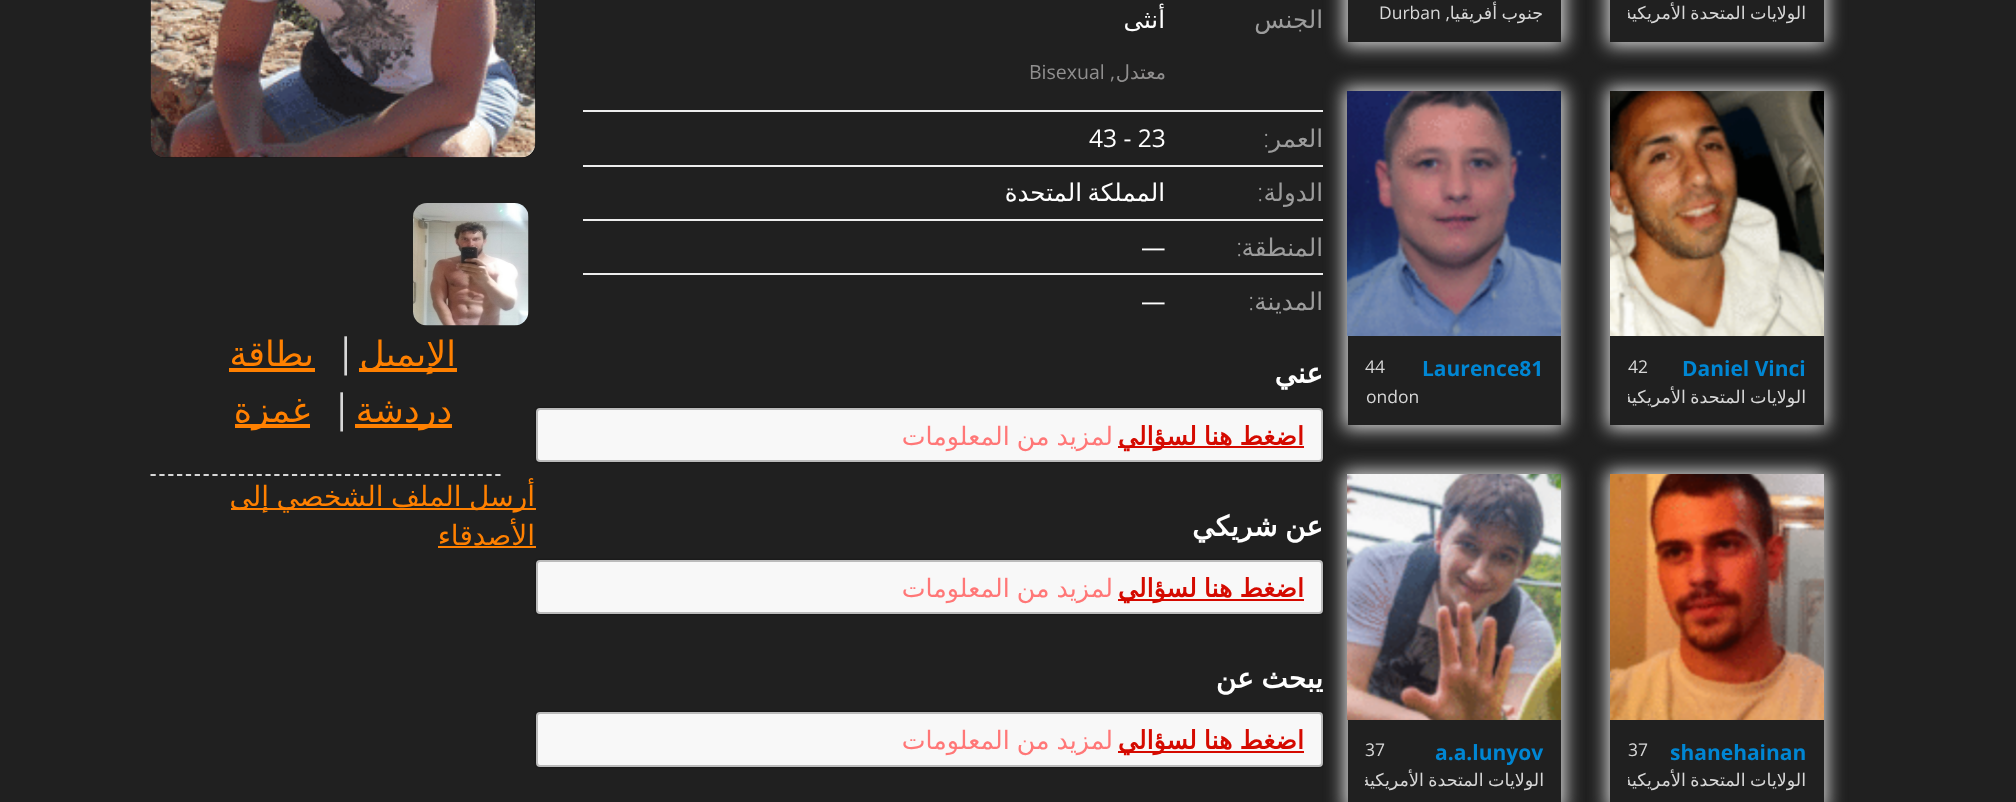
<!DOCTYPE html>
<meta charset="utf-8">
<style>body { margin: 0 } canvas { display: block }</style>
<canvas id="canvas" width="2016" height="802"></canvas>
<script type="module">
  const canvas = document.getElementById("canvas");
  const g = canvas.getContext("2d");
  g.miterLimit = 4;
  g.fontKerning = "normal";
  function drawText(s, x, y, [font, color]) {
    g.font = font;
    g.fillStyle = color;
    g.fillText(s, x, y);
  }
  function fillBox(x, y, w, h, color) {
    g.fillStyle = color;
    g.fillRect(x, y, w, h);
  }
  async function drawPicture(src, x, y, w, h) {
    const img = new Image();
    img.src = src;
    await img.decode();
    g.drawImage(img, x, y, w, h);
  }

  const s1 = ["17.5px DejaVu Sans", "#D7D7D7"];
  const s2 = ["17.5px Open Sans", "#D7D7D7"];
  const s3 = ["bold 21px Open Sans", "#0086D3"];
  const s4 = ["24.5px DejaVu Sans", "#9C9C9C"];
  const s5 = ["24.5px DejaVu Sans", "#FFFFFF"];
  const s6 = ["19.5px DejaVu Sans", "#908F8F"];
  const s7 = ["19.5px Open Sans", "#908F8F"];
  const s8 = ["300 24.5px Open Sans", "#9C9C9C"];
  const s9 = ["24.5px Open Sans", "#FFFFFF"];
  const s10 = ["bold 28px DejaVu Sans", "#FFFFFF"];
  const s11 = ["bold 25.25px DejaVu Sans", "#D50A00"];
  const s12 = ["25.25px DejaVu Sans", "#FF7777"];
  const s13 = ["35px DejaVu Sans", "#FF8000"];
  const s14 = ["39px Open Sans", "#D7D7D7"];
  const s15 = ["28px DejaVu Sans", "#FF8000"];

  fillBox(0, 0, 2016, 802, "#202020");
  g.save();
  g.beginPath();
  g.moveTo(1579, 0);
  g.lineTo(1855, 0);
  g.lineTo(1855, 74);
  g.lineTo(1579, 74);
  g.closePath();
  g.moveTo(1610, -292);
  g.lineTo(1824, -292);
  g.lineTo(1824, 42);
  g.lineTo(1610, 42);
  g.closePath();
  g.clip("evenodd");
  g.fillStyle = "#D7D7D7";
  g.filter = "blur(9px)";
  g.beginPath();
  g.rect(1607, -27, 220, 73);
  g.fill();
  g.filter = "none";
  g.restore();
  g.save();
  g.beginPath();
  g.rect(1628, 0, 178, 25);
  g.clip();
  g.wordSpacing = "-1px";
  g.direction = "rtl";
  drawText("الولايات المتحدة الأمريكية", 1806, 19, s1);
  g.restore();
  g.save();
  g.beginPath();
  g.moveTo(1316, 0);
  g.lineTo(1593, 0);
  g.lineTo(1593, 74);
  g.lineTo(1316, 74);
  g.closePath();
  g.moveTo(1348, -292);
  g.lineTo(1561, -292);
  g.lineTo(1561, 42);
  g.lineTo(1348, 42);
  g.closePath();
  g.clip("evenodd");
  g.fillStyle = "#D7D7D7";
  g.filter = "blur(9px)";
  g.beginPath();
  g.rect(1344, -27, 221, 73);
  g.fill();
  g.filter = "none";
  g.restore();
  g.direction = "rtl";
  drawText("جنوب", 1543, 19, s1);
  drawText("أفريقيا", 1497, 19, s1);
  drawText(",", 1450, 19, s2);
  g.direction = "ltr";
  drawText("Durban", 1379, 19, s2);
  g.save();
  g.beginPath();
  g.moveTo(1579, 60);
  g.lineTo(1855, 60);
  g.lineTo(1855, 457);
  g.lineTo(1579, 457);
  g.closePath();
  g.moveTo(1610, 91);
  g.lineTo(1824, 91);
  g.lineTo(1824, 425);
  g.lineTo(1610, 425);
  g.closePath();
  g.clip("evenodd");
  g.filter = "blur(9px)";
  g.beginPath();
  g.rect(1607, 88, 220, 341);
  g.fill();
  g.filter = "none";
  g.restore();
  await drawPicture("pic1.png", 1610, 91, 214, 245);
  drawText("Daniel Vinci", 1682, 376, s3);
  drawText("42", 1628, 373, s2);
  g.save();
  g.beginPath();
  g.rect(1628, 383, 178, 25);
  g.clip();
  g.wordSpacing = "-1px";
  g.direction = "rtl";
  drawText("الولايات المتحدة الأمريكية", 1806, 403, s1);
  g.restore();
  fillBox(583, 110, 740, 2, "#ECECEC");
  fillBox(583, 165, 740, 2, "#ECECEC");
  fillBox(583, 219, 740, 2, "#ECECEC");
  fillBox(583, 273, 740, 2, "#ECECEC");
  g.fillStyle = "rgba(0, 0, 0, 0.5)";
  g.filter = "blur(1px)";
  g.beginPath();
  g.roundRect(536, 408, 787, 54, 4);
  g.fill();
  g.filter = "none";
  g.fillStyle = "#F8F8F8";
  g.beginPath();
  g.roundRect(537, 409, 785, 52, 3);
  g.fill();
  g.strokeStyle = "#BBBBBB";
  g.lineWidth = 2;
  g.stroke();
  g.save();
  g.beginPath();
  g.moveTo(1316, 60);
  g.lineTo(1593, 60);
  g.lineTo(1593, 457);
  g.lineTo(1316, 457);
  g.closePath();
  g.moveTo(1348, 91);
  g.lineTo(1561, 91);
  g.lineTo(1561, 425);
  g.lineTo(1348, 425);
  g.closePath();
  g.clip("evenodd");
  g.fillStyle = "#D7D7D7";
  g.filter = "blur(9px)";
  g.beginPath();
  g.rect(1344, 88, 221, 341);
  g.fill();
  g.filter = "none";
  g.restore();
  await drawPicture("pic2.png", 1347, 91, 214, 245);
  drawText("Laurence81", 1422, 376, s3);
  drawText("44", 1365, 373, s2);
  drawText("ondon", 1366, 403, s2);
  g.save();
  g.beginPath();
  g.moveTo(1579, 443);
  g.lineTo(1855, 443);
  g.lineTo(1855, 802);
  g.lineTo(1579, 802);
  g.closePath();
  g.moveTo(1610, 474);
  g.lineTo(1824, 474);
  g.lineTo(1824, 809);
  g.lineTo(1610, 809);
  g.closePath();
  g.clip("evenodd");
  g.filter = "blur(9px)";
  g.beginPath();
  g.rect(1607, 471, 220, 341);
  g.fill();
  g.filter = "none";
  g.restore();
  await drawPicture("pic3.png", 1610, 474, 214, 246);
  drawText("shanehainan", 1670, 760, s3);
  drawText("37", 1628, 756, s2);
  g.save();
  g.beginPath();
  g.rect(1628, 767, 178, 24);
  g.clip();
  g.wordSpacing = "-1px";
  g.direction = "rtl";
  drawText("الولايات المتحدة الأمريكية", 1806, 786, s1);
  g.restore();
  g.fillStyle = "rgba(0, 0, 0, 0.5)";
  g.filter = "blur(1px)";
  g.beginPath();
  g.roundRect(536, 560, 787, 54, 4);
  g.fill();
  g.filter = "none";
  g.fillStyle = "#F8F8F8";
  g.beginPath();
  g.roundRect(537, 561, 785, 52, 3);
  g.fill();
  g.stroke();
  g.fillStyle = "rgba(0, 0, 0, 0.5)";
  g.filter = "blur(1px)";
  g.beginPath();
  g.roundRect(536, 712, 787, 55, 4);
  g.fill();
  g.filter = "none";
  g.fillStyle = "#F8F8F8";
  g.beginPath();
  g.roundRect(537, 713, 785, 53, 3);
  g.fill();
  g.stroke();
  g.save();
  g.beginPath();
  g.moveTo(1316, 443);
  g.lineTo(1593, 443);
  g.lineTo(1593, 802);
  g.lineTo(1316, 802);
  g.closePath();
  g.moveTo(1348, 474);
  g.lineTo(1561, 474);
  g.lineTo(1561, 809);
  g.lineTo(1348, 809);
  g.closePath();
  g.clip("evenodd");
  g.fillStyle = "#D7D7D7";
  g.filter = "blur(9px)";
  g.beginPath();
  g.rect(1344, 471, 221, 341);
  g.fill();
  g.filter = "none";
  g.restore();
  await drawPicture("pic4.png", 1347, 474, 214, 246);
  drawText("a.a.lunyov", 1435, 760, s3);
  drawText("37", 1365, 756, s2);
  g.save();
  g.beginPath();
  g.rect(1365, 767, 179, 24);
  g.clip();
  g.wordSpacing = "-1px";
  g.direction = "rtl";
  drawText("الولايات المتحدة الأمريكية", 1544, 786, s1);
  g.restore();
  g.direction = "rtl";
  drawText("الجنس", 1323, 28, s4);
  drawText("أنثى", 1165, 28, s5);
  drawText("معتدل", 1166, 79, s6);
  drawText(",", 1115, 79, s7);
  g.direction = "ltr";
  drawText("Bisexual", 1029, 79, s7);
  g.direction = "rtl";
  drawText("العمر", 1323, 147, s4);
  drawText(":", 1269, 147, s8);
  g.direction = "ltr";
  drawText("43 - 23", 1089, 147, s9);
  g.direction = "rtl";
  drawText("الدولة", 1323, 201, s4);
  drawText(":", 1263, 201, s8);
  drawText("المملكة", 1165, 201, s5);
  drawText("المتحدة", 1082, 201, s5);
  drawText("المنطقة", 1323, 256, s4);
  drawText(":", 1242, 256, s8);
  g.direction = "ltr";
  drawText("—", 1141, 256, s9);
  g.direction = "rtl";
  drawText("المدينة", 1323, 310, s4);
  drawText(":", 1254, 310, s8);
  g.direction = "ltr";
  drawText("—", 1141, 310, s9);
  g.direction = "rtl";
  drawText("عني", 1323, 383, s10);
  fillBox(1118, 446, 186, 2, "#D50A00");
  g.wordSpacing = "-1px";
  drawText("اضغط هنا لسؤالي", 1304, 445, s11);
  drawText("لمزيد من المعلومات", 1113, 445, s12);
  g.wordSpacing = "-1.5px";
  drawText("عن شريكي", 1323, 536, s10);
  fillBox(1118, 599, 186, 2, "#D50A00");
  g.wordSpacing = "-1px";
  drawText("اضغط هنا لسؤالي", 1304, 597, s11);
  drawText("لمزيد من المعلومات", 1113, 597, s12);
  g.wordSpacing = "-1.5px";
  drawText("يبحث عن", 1323, 688, s10);
  fillBox(1118, 751, 186, 2, "#D50A00");
  g.wordSpacing = "-1px";
  drawText("اضغط هنا لسؤالي", 1304, 749, s11);
  drawText("لمزيد من المعلومات", 1113, 749, s12);
  g.save();
  g.beginPath();
  g.roundRect(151, -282, 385, 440, 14);
  g.clip();
  g.fillStyle = "rgba(0, 0, 0, 0.5)";
  g.filter = "blur(9px)";
  g.beginPath();
  g.roundRect(151, -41, 385, 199, 14);
  g.fill();
  g.filter = "none";
  g.restore();
  await drawPicture("pic5.png", 150, 0, 386, 158);
  await drawPicture("pic6.png", 413, 203, 116, 123);
  fillBox(359, 368, 98, 4, "#FF8000");
  g.wordSpacing = "0px";
  drawText("الإيميل", 456, 366, s13);
  g.direction = "ltr";
  drawText("|", 335, 366, s14);
  fillBox(229, 368, 86, 4, "#FF8000");
  g.direction = "rtl";
  drawText("بطاقة", 314, 366, s13);
  fillBox(355, 424, 97, 4, "#FF8000");
  drawText("دردشة", 452, 422, s13);
  g.direction = "ltr";
  drawText("|", 331, 422, s14);
  fillBox(235, 424, 75, 4, "#FF8000");
  g.direction = "rtl";
  drawText("غمزة", 310, 422, s13);
  g.beginPath();
  g.moveTo(150.5, 475);
  g.lineTo(500.5, 475);
  g.strokeStyle = "#D7D7D7";
  g.lineWidth = 1.8;
  g.setLineDash([5.25, 3.59]);
  g.stroke();
  fillBox(231, 508, 305, 2, "#FF8000");
  g.wordSpacing = "-1.5px";
  drawText("أرسل الملف الشخصي إلى", 535, 506, s15);
  g.wordSpacing = "0px";
  drawText("الأصدقاء", 535, 545, s15);
  fillBox(438, 546, 98, 2, "#FF8000");
</script>
